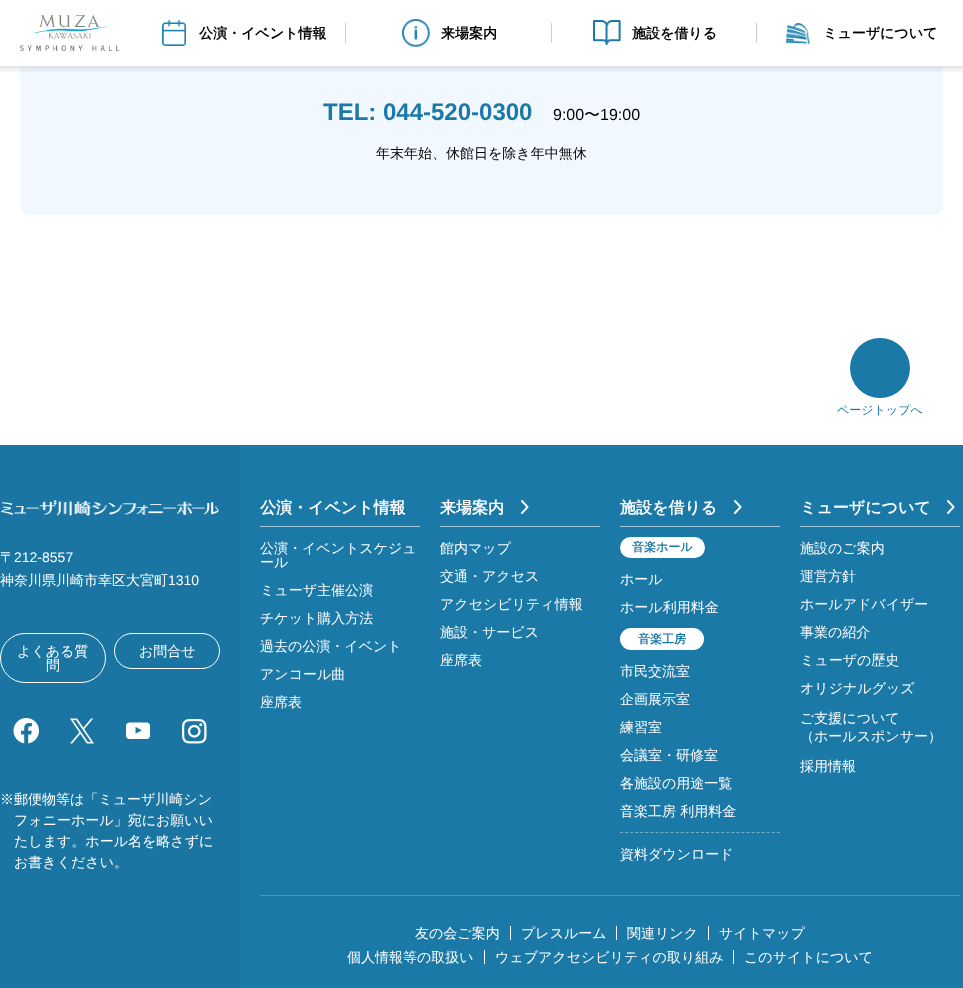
<!DOCTYPE html>
<meta charset="utf-8">
<style>body { margin: 0 } canvas { display: block }</style>
<canvas id="canvas" width="963" height="988"></canvas>
<script type="module">
  const canvas = document.getElementById("canvas");
  const g = canvas.getContext("2d");
  g.miterLimit = 4;
  g.fontKerning = "normal";
  function drawText(s, x, y, [font, color]) {
    g.font = font;
    g.fillStyle = color;
    g.fillText(s, x, y);
  }
  function fillBox(x, y, w, h, color) {
    g.fillStyle = color;
    g.fillRect(x, y, w, h);
  }
  function fillRounded(x, y, w, h, r, color) {
    g.fillStyle = color;
    g.beginPath();
    g.roundRect(x, y, w, h, r);
    g.fill();
  }
  async function drawPicture(src, x, y, w, h) {
    const img = new Image();
    img.src = src;
    await img.decode();
    g.drawImage(img, x, y, w, h);
  }
  let gradient;

  const s1 = ["bold 14px WenQuanYi Zen Hei", "#000000"];
  const s2 = ["bold 24px Liberation Sans", "#1B79A8"];
  const s3 = ["16px Liberation Sans", "#000000"];
  const s4 = ["500 16px WenQuanYi Zen Hei", "#000000"];
  const s5 = ["500 14px WenQuanYi Zen Hei", "#000000"];
  const s6 = ["500 12px WenQuanYi Zen Hei", "#1B79A8"];
  const s7 = ["500 14px WenQuanYi Zen Hei", "#FFFFFF"];
  const s8 = ["14px Liberation Sans", "#FFFFFF"];
  const s9 = ["bold 16px WenQuanYi Zen Hei", "#FFFFFF"];
  const s10 = ["bold 12px WenQuanYi Zen Hei", "#1B79A8"];

  fillBox(0, 0, 963, 988, "#FFFFFF");
  fillRounded(20, 12, 923, 203, 10, "#F2F8FF");
  fillBox(20, 12, 923, 54, "#FFFFFF");
  await drawPicture("pic1.png", 20, 15, 100, 36);
  await drawPicture("pic2.png", 162, 20, 24, 26);
  drawText("公演・イベント情報", 199, 38, s1);
  fillBox(345, 23, 1, 20, "#CCCCCC");
  await drawPicture("pic3.png", 402, 19, 28, 28);
  drawText("来場案内", 441, 38, s1);
  fillBox(551, 23, 1, 20, "#CCCCCC");
  await drawPicture("pic4.png", 593, 20, 28, 25);
  drawText("施設を借りる", 632, 38, s1);
  fillBox(756, 23, 1, 20, "#CCCCCC");
  await drawPicture("pic5.png", 786, 23, 24, 21);
  drawText("ミューザについて", 823, 38, s1);
  gradient = g.createLinearGradient(482, 66, 482, 74);
  gradient.addColorStop(0, "rgba(0, 0, 0, 0.1)");
  gradient.addColorStop(1, "rgba(0, 0, 0, 0)");
  g.fillStyle = gradient;
  g.fillRect(0, 66, 963, 6);
  drawText("TEL: 044-520-0300", 323, 120, s2);
  drawText("9:00", 553, 120, s3);
  drawText("〜", 584, 120, s4);
  drawText("19:00", 600, 120, s3);
  drawText("年末年始、休館日を除き年中無休", 376, 158, s5);
  g.fillStyle = "#1B79A8";
  g.beginPath();
  g.arc(880, 368, 30, 0, Math.PI * 2);
  g.fill();
  drawText("ページトップへ", 837, 414, s6);
  fillBox(0, 445, 240, 543, "#1A75A3");
  fillBox(240, 445, 723, 543, "#1B79A8");
  await drawPicture("pic6.png", 1, 500, 218, 16);
  drawText("〒", 0, 562, s7);
  drawText("212-8557", 14, 562, s8);
  drawText("神奈川県川崎市幸区大宮町", 0, 585, s7);
  drawText("1310", 168, 585, s8);
  g.beginPath();
  g.roundRect(0.5, 633.5, 105, 49, 24.5);
  g.strokeStyle = "#FFFFFF";
  g.stroke();
  drawText("よくある質", 17, 656, s7);
  drawText("問", 46, 670, s7);
  g.beginPath();
  g.roundRect(114.5, 633.5, 105, 35, 17.5);
  g.stroke();
  drawText("お問合せ", 139, 656, s7);
  await drawPicture("pic7.png", 13, 718, 26, 26);
  await drawPicture("pic8.png", 70, 718, 24, 26);
  await drawPicture("pic9.png", 126, 722, 24, 17);
  await drawPicture("pic10.png", 182, 719, 25, 25);
  drawText("※郵便物等は「ミューザ川崎シン", 0, 804, s7);
  drawText("フォニーホール」宛にお願いい", 14, 825, s7);
  drawText("たします。ホール名を略さずに", 14, 846, s7);
  drawText("お書きください。", 14, 867, s7);
  fillBox(260, 526, 160, 1, "#A2C8DB");
  drawText("公演・イベント情報", 260, 513, s9);
  drawText("公演・イベントスケジュ", 260, 553, s7);
  drawText("ール", 260, 567, s7);
  drawText("ミューザ主催公演", 260, 595, s7);
  drawText("チケット購入方法", 260, 623, s7);
  drawText("過去の公演・イベント", 260, 651, s7);
  drawText("アンコール曲", 260, 679, s7);
  drawText("座席表", 260, 707, s7);
  fillBox(440, 526, 160, 1, "#A2C8DB");
  drawText("来場案内", 440, 513, s9);
  await drawPicture("pic11.png", 521, 500, 8, 14);
  drawText("館内マップ", 440, 553, s7);
  drawText("交通・アクセス", 440, 581, s7);
  drawText("アクセシビリティ情報", 440, 609, s7);
  drawText("施設・サービス", 440, 637, s7);
  drawText("座席表", 440, 665, s7);
  fillBox(620, 526, 160, 1, "#A2C8DB");
  drawText("施設を借りる", 620, 513, s9);
  await drawPicture("pic11.png", 734, 500, 8, 14);
  fillRounded(620, 537, 85, 21, 10.5, "#FFFFFF");
  drawText("音楽ホール", 632, 551, s10);
  drawText("ホール", 620, 584, s7);
  drawText("ホール利用料金", 620, 612, s7);
  fillRounded(620, 628, 84, 22, 11, "#FFFFFF");
  drawText("音楽工房", 638, 643, s10);
  drawText("市民交流室", 620, 676, s7);
  drawText("企画展示室", 620, 704, s7);
  drawText("練習室", 620, 732, s7);
  drawText("会議室・研修室", 620, 760, s7);
  drawText("各施設の用途一覧", 620, 788, s7);
  drawText("音楽工房 利用料金", 620, 816, s7);
  g.beginPath();
  g.moveTo(620, 832.5);
  g.lineTo(780, 832.5);
  g.strokeStyle = "#76AFCB";
  g.setLineDash([3, 2.06]);
  g.stroke();
  drawText("資料ダウンロード", 620, 859, s7);
  fillBox(800, 526, 160, 1, "#A2C8DB");
  drawText("ミューザについて", 800, 513, s9);
  await drawPicture("pic11.png", 947, 500, 8, 14);
  drawText("施設のご案内", 800, 553, s7);
  drawText("運営方針", 800, 581, s7);
  drawText("ホールアドバイザー", 800, 609, s7);
  drawText("事業の紹介", 800, 637, s7);
  drawText("ミューザの歴史", 800, 665, s7);
  drawText("オリジナルグッズ", 800, 693, s7);
  drawText("ご支援について", 800, 723, s7);
  drawText("（ホールスポンサー）", 800, 741, s7);
  drawText("採用情報", 800, 771, s7);
  fillBox(260, 895, 700, 1, "#4D96BB");
  drawText("友の会ご案内", 415, 938, s7);
  fillBox(510, 926, 1, 14, "#FFFFFF");
  drawText("プレスルーム", 521, 938, s7);
  fillBox(616, 926, 1, 14, "#FFFFFF");
  drawText("関連リンク", 627, 938, s7);
  fillBox(708, 926, 1, 14, "#FFFFFF");
  drawText("サイトマップ", 719, 938, s7);
  drawText("個人情報等の取扱い", 347, 962, s7);
  fillBox(484, 950, 1, 14, "#FFFFFF");
  drawText("ウェブアクセシビリティの取り組み", 495, 962, s7);
  fillBox(733, 950, 1, 14, "#FFFFFF");
  drawText("このサイトについて", 744, 962, s7);
</script>
